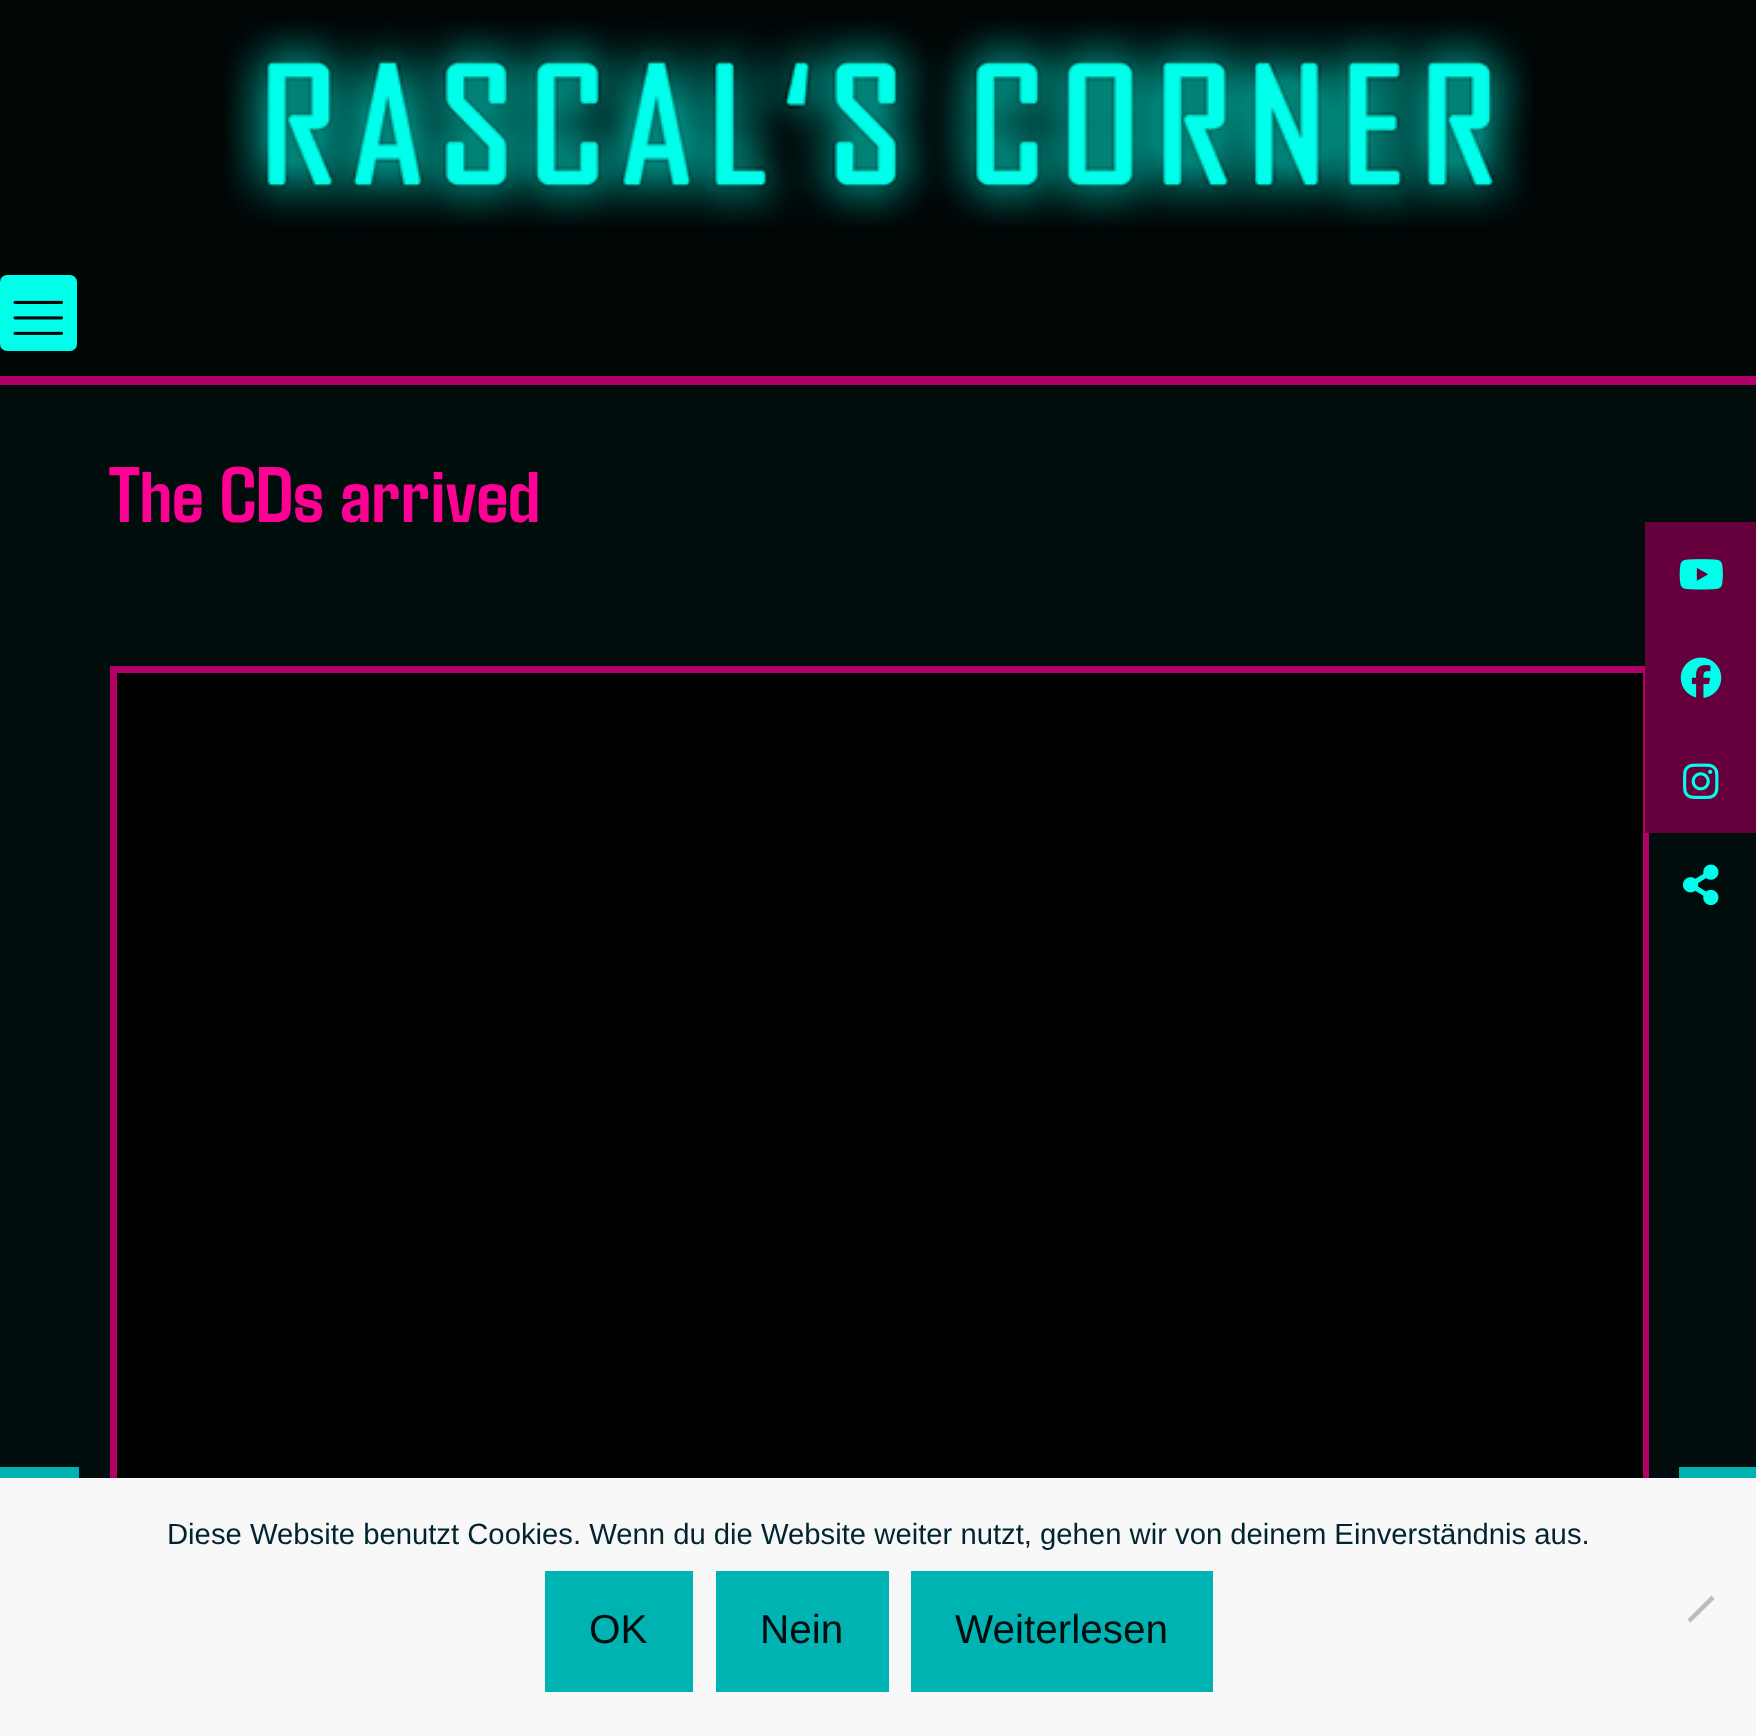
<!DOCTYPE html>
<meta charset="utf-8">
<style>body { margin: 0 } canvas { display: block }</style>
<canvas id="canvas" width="1756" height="1736"></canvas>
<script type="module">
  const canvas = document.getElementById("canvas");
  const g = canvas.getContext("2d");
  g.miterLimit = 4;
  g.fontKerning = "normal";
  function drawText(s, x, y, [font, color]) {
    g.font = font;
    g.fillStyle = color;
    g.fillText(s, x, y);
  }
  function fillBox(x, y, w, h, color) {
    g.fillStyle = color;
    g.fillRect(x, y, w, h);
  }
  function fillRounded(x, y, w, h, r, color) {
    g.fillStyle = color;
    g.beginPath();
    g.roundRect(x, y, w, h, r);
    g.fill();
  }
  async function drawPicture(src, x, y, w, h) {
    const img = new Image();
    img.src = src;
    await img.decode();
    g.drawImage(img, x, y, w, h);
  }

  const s1 = ["bold 78.75px Agdasima", "#FF0095"];
  const s2 = ["29.25px Liberation Sans", "#002530"];
  const s3 = ["40.5px Liberation Sans", "#000D0C"];

  fillBox(0, 0, 1756, 1736, "#000D0C");
  fillBox(0, 0, 1756, 376, "#000505");
  fillBox(0, 376, 1756, 9, "#B30068");
  await drawPicture("pic1.png", 224, 20, 1309, 208);
  fillRounded(0, 275, 77, 76, 7, "#00FFEA");
  await drawPicture("pic2.png", 13, 300, 50, 35);
  drawText("The CDs arrived", 109, 522, s1);
  g.strokeStyle = "#B30068";
  g.lineWidth = 7;
  g.strokeRect(113.5, 669.5, 1532, 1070);
  fillBox(117, 673, 1526, 805, "#000000");
  fillBox(1645, 522, 111, 311, "#66003C");
  await drawPicture("pic3.png", 1679, 559, 44, 31);
  await drawPicture("pic4.png", 1680, 657, 42, 41);
  await drawPicture("pic5.png", 1683, 763, 36, 36);
  await drawPicture("pic6.png", 1683, 864, 36, 42);
  fillBox(0, 1467, 79, 11, "#00B3B3");
  fillBox(1679, 1467, 77, 11, "#00B3B3");
  fillBox(0, 1478, 1756, 258, "#F8F8F8");
  drawText("Diese Website benutzt Cookies. Wenn du die Website weiter nutzt, gehen wir von deinem Einverständnis aus.", 167, 1544, s2);
  g.fillStyle = "#BCBCBC";
  g.beginPath();
  g.moveTo(1711.5, 1595.5);
  g.lineTo(1714.5, 1599);
  g.lineTo(1690.5, 1622.5);
  g.lineTo(1687.5, 1619.5);
  g.closePath();
  g.fill();
  fillBox(545, 1571, 148, 121, "#00B3B3");
  drawText("OK", 589, 1643, s3);
  fillBox(716, 1571, 173, 121, "#00B3B3");
  drawText("Nein", 760, 1643, s3);
  fillBox(911, 1571, 302, 121, "#00B3B3");
  drawText("Weiterlesen", 955, 1643, s3);
</script>
